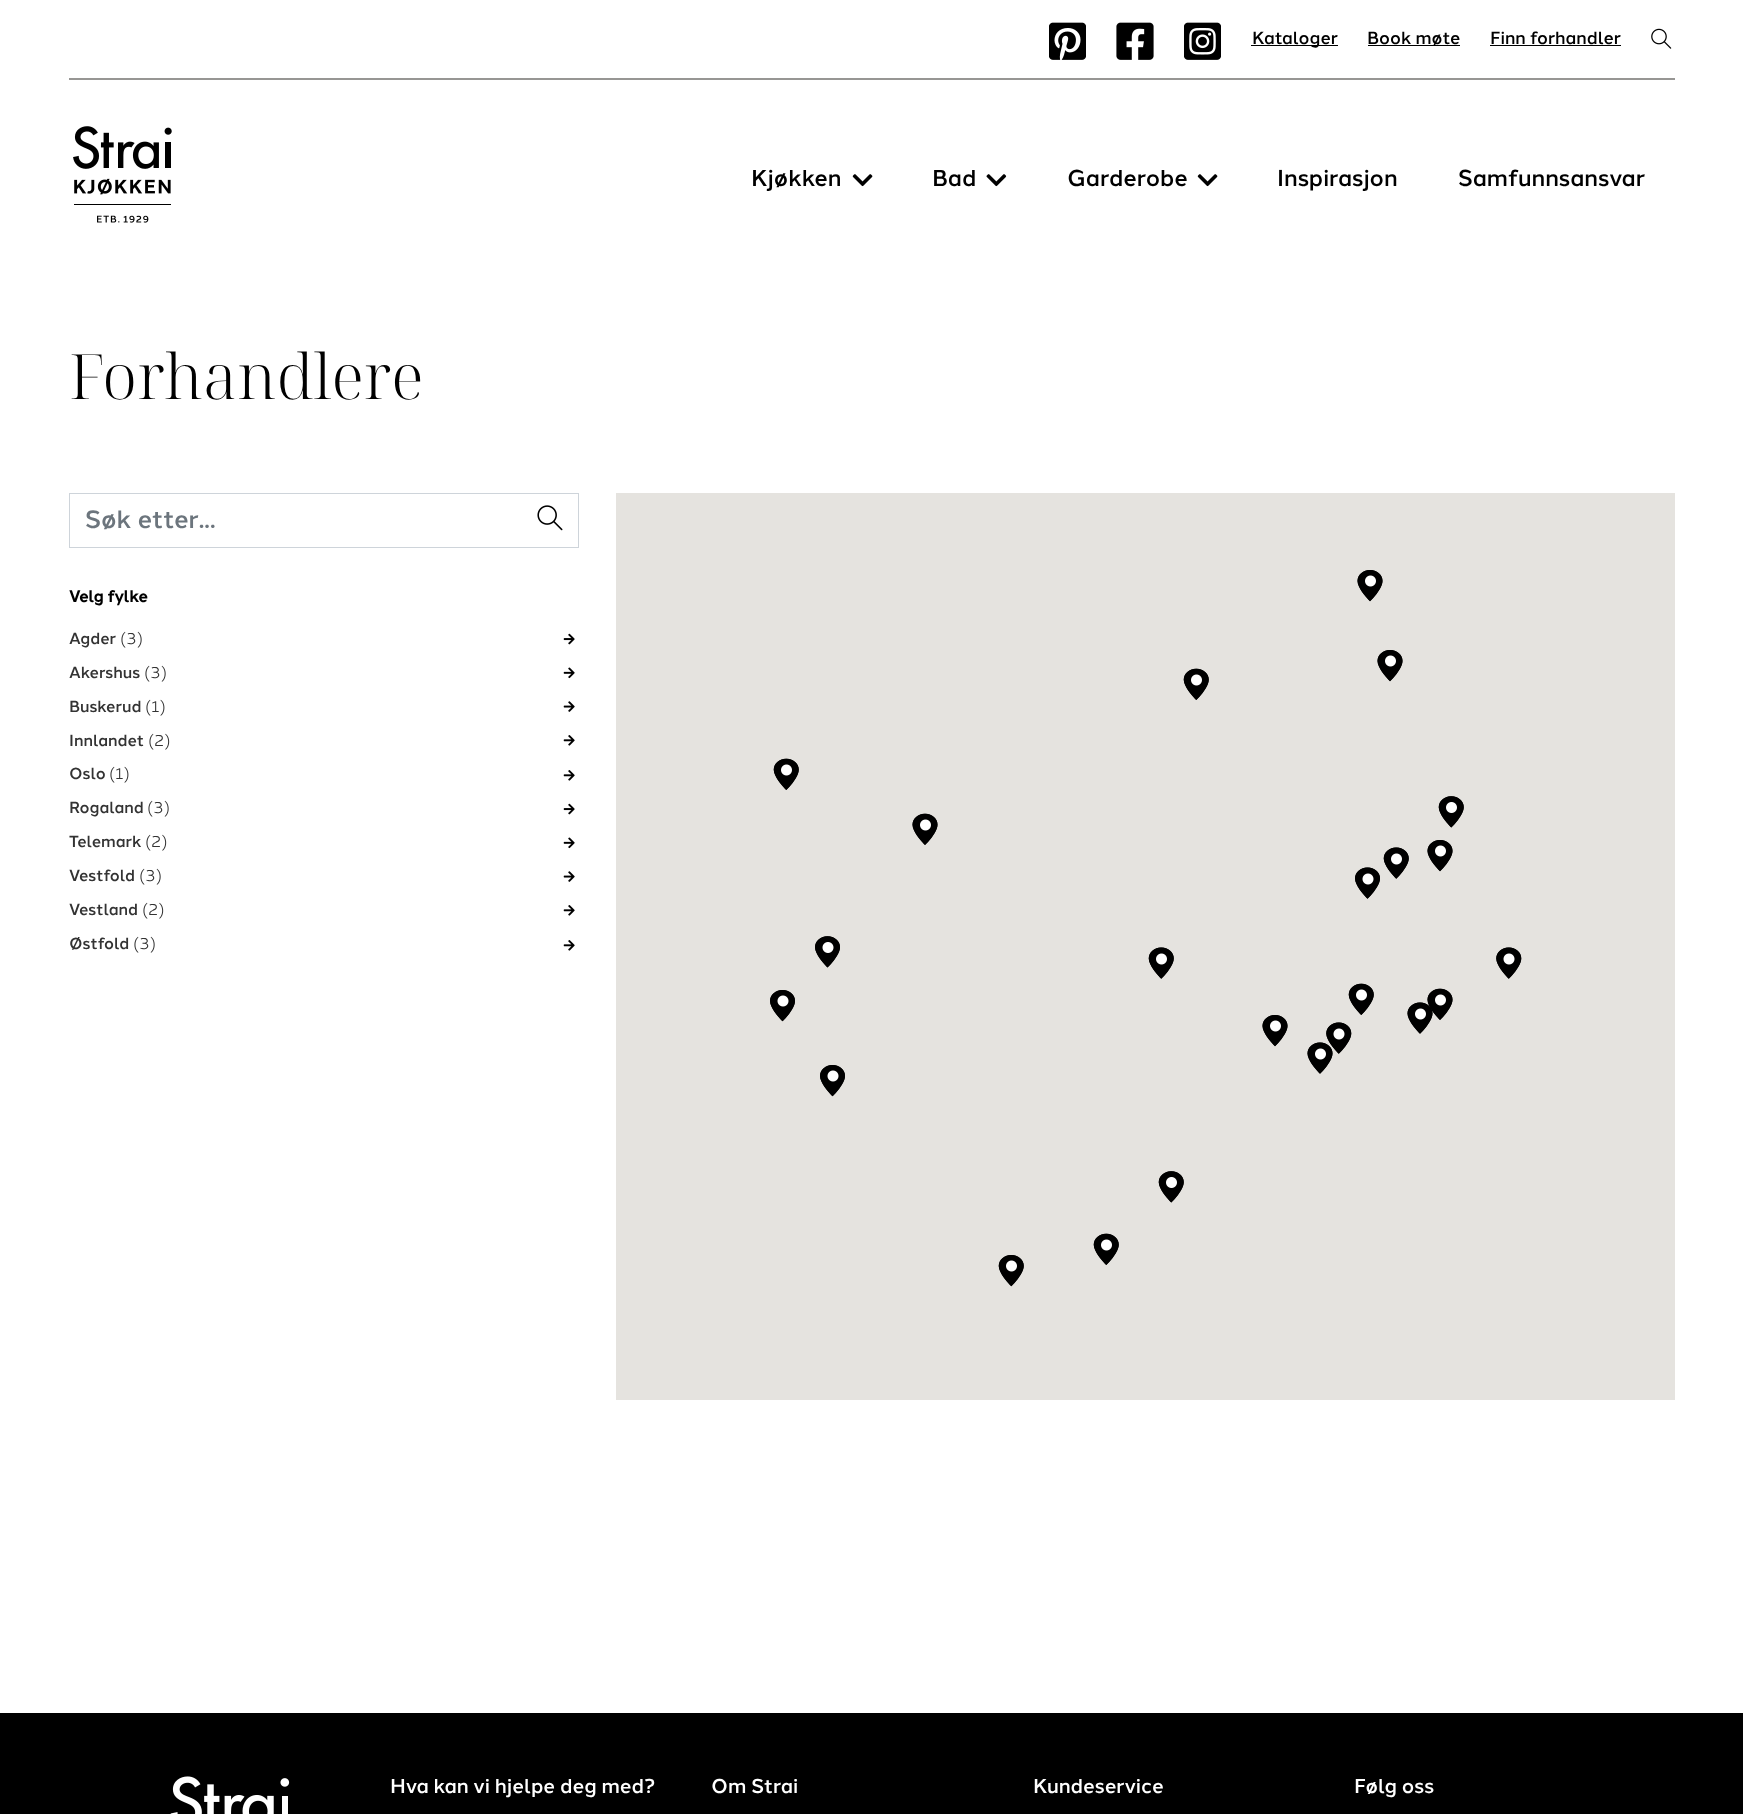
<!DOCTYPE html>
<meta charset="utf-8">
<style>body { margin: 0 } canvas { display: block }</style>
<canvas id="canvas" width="1743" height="1814"></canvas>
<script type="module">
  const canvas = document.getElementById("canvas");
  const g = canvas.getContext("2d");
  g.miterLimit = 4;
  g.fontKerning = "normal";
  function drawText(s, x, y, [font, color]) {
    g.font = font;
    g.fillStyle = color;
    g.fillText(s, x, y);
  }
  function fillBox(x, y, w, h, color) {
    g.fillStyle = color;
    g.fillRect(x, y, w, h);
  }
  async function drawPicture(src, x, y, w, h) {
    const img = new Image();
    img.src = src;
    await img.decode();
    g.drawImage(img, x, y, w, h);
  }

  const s1 = ["500 17.5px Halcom", "#000000"];
  const s2 = ["500 23px Halcom", "#000000"];
  const s3 = ["300 62.5px Noto Serif Display", "#000000"];
  const s4 = ["500 25px Halcom", "#6C757D"];
  const s5 = ["bold 16px Halcom", "#000000"];
  const s6 = ["500 16px Halcom", "#333333"];
  const s7 = ["16px Halcom", "#333333"];
  const s8 = ["500 20px Halcom", "#FFFFFF"];

  fillBox(0, 0, 1743, 1814, "#FFFFFF");
  fillBox(69, 78, 1606, 2, "#979694");
  await drawPicture("pic1.png", 1049, 22, 37, 38);
  await drawPicture("pic2.png", 1116, 22, 38, 38);
  await drawPicture("pic3.png", 1184, 22, 37, 38);
  fillBox(1251, 45, 87, 1, "#000000");
  drawText("Kataloger", 1252, 44, s1);
  drawText("Book møte", 1367, 44, s1);
  fillBox(1368, 45, 92, 1, "#000000");
  drawText("Finn forhandler", 1490, 44, s1);
  fillBox(1490, 45, 131, 1, "#000000");
  await drawPicture("pic4.png", 1651, 28, 21, 21);
  await drawPicture("pic5.png", 73, 126, 99, 97);
  drawText("Kjøkken", 751, 186, s2);
  await drawPicture("pic6.png", 852, 174, 21, 13);
  drawText("Bad", 932, 186, s2);
  await drawPicture("pic7.png", 986, 174, 21, 13);
  drawText("Garderobe", 1067, 186, s2);
  await drawPicture("pic6.png", 1197, 174, 21, 13);
  drawText("Inspirasjon", 1277, 186, s2);
  drawText("Samfunnsansvar", 1458, 186, s2);
  drawText("Forhandlere", 69, 399, s3);
  g.strokeStyle = "#CED4DA";
  g.strokeRect(69.5, 493.5, 509, 54);
  drawText("Søk etter...", 85, 528, s4);
  await drawPicture("pic8.png", 537, 505, 26, 26);
  drawText("Velg fylke", 69, 602, s5);
  drawText("Agder", 69, 644, s6);
  drawText("(3)", 120, 644, s7);
  await drawPicture("pic9.png", 563, 633, 12, 12);
  drawText("Akershus", 69, 678, s6);
  drawText("(3)", 144, 678, s7);
  await drawPicture("pic10.png", 563, 667, 12, 12);
  drawText("Buskerud", 69, 712, s6);
  drawText("(1)", 145, 712, s7);
  await drawPicture("pic11.png", 563, 701, 12, 11);
  drawText("Innlandet", 69, 746, s6);
  drawText("(2)", 148, 746, s7);
  await drawPicture("pic12.png", 563, 735, 12, 11);
  drawText("Oslo", 69, 779, s6);
  drawText("(1)", 109, 779, s7);
  await drawPicture("pic12.png", 563, 770, 12, 11);
  drawText("Rogaland", 69, 813, s6);
  drawText("(3)", 147, 813, s7);
  await drawPicture("pic9.png", 563, 803, 12, 12);
  drawText("Telemark", 69, 847, s6);
  drawText("(2)", 145, 847, s7);
  await drawPicture("pic10.png", 563, 837, 12, 12);
  drawText("Vestfold", 69, 881, s6);
  drawText("(3)", 139, 881, s7);
  await drawPicture("pic11.png", 563, 871, 12, 11);
  drawText("Vestland", 69, 915, s6);
  drawText("(2)", 142, 915, s7);
  await drawPicture("pic12.png", 563, 905, 12, 11);
  drawText("Østfold", 69, 949, s6);
  drawText("(3)", 133, 949, s7);
  await drawPicture("pic12.png", 563, 940, 12, 11);
  fillBox(616, 493, 1059, 907, "#E5E3DF");
  await drawPicture("pic13.png", 1357, 570, 26, 32);
  await drawPicture("pic14.png", 1183, 668, 26, 32);
  await drawPicture("pic13.png", 1377, 650, 26, 32);
  await drawPicture("pic14.png", 773, 758, 26, 32);
  await drawPicture("pic15.png", 912, 813, 26, 32);
  await drawPicture("pic16.png", 1438, 796, 26, 32);
  await drawPicture("pic17.png", 1383, 847, 26, 32);
  await drawPicture("pic13.png", 1427, 840, 26, 32);
  await drawPicture("pic18.png", 1355, 867, 25, 32);
  await drawPicture("pic19.png", 815, 936, 25, 32);
  await drawPicture("pic17.png", 1148, 947, 26, 32);
  await drawPicture("pic20.png", 1496, 947, 26, 32);
  await drawPicture("pic21.png", 770, 990, 25, 32);
  await drawPicture("pic13.png", 1262, 1015, 26, 32);
  await drawPicture("pic20.png", 1326, 1022, 26, 32);
  await drawPicture("pic14.png", 1348, 983, 26, 32);
  await drawPicture("pic15.png", 1427, 988, 26, 32);
  await drawPicture("pic22.png", 1407, 1002, 26, 32);
  await drawPicture("pic23.png", 1307, 1042, 26, 32);
  await drawPicture("pic21.png", 820, 1065, 25, 32);
  await drawPicture("pic16.png", 1158, 1171, 26, 32);
  await drawPicture("pic14.png", 1093, 1233, 26, 32);
  await drawPicture("pic24.png", 998, 1255, 26, 32);
  fillBox(0, 1713, 1743, 101, "#000000");
  await drawPicture("pic25.png", 170, 1776, 120, 38);
  drawText("Hva kan vi hjelpe deg med?", 390, 1793, s8);
  drawText("Om Strai", 711, 1793, s8);
  drawText("Kundeservice", 1033, 1793, s8);
  drawText("Følg oss", 1354, 1793, s8);
</script>
